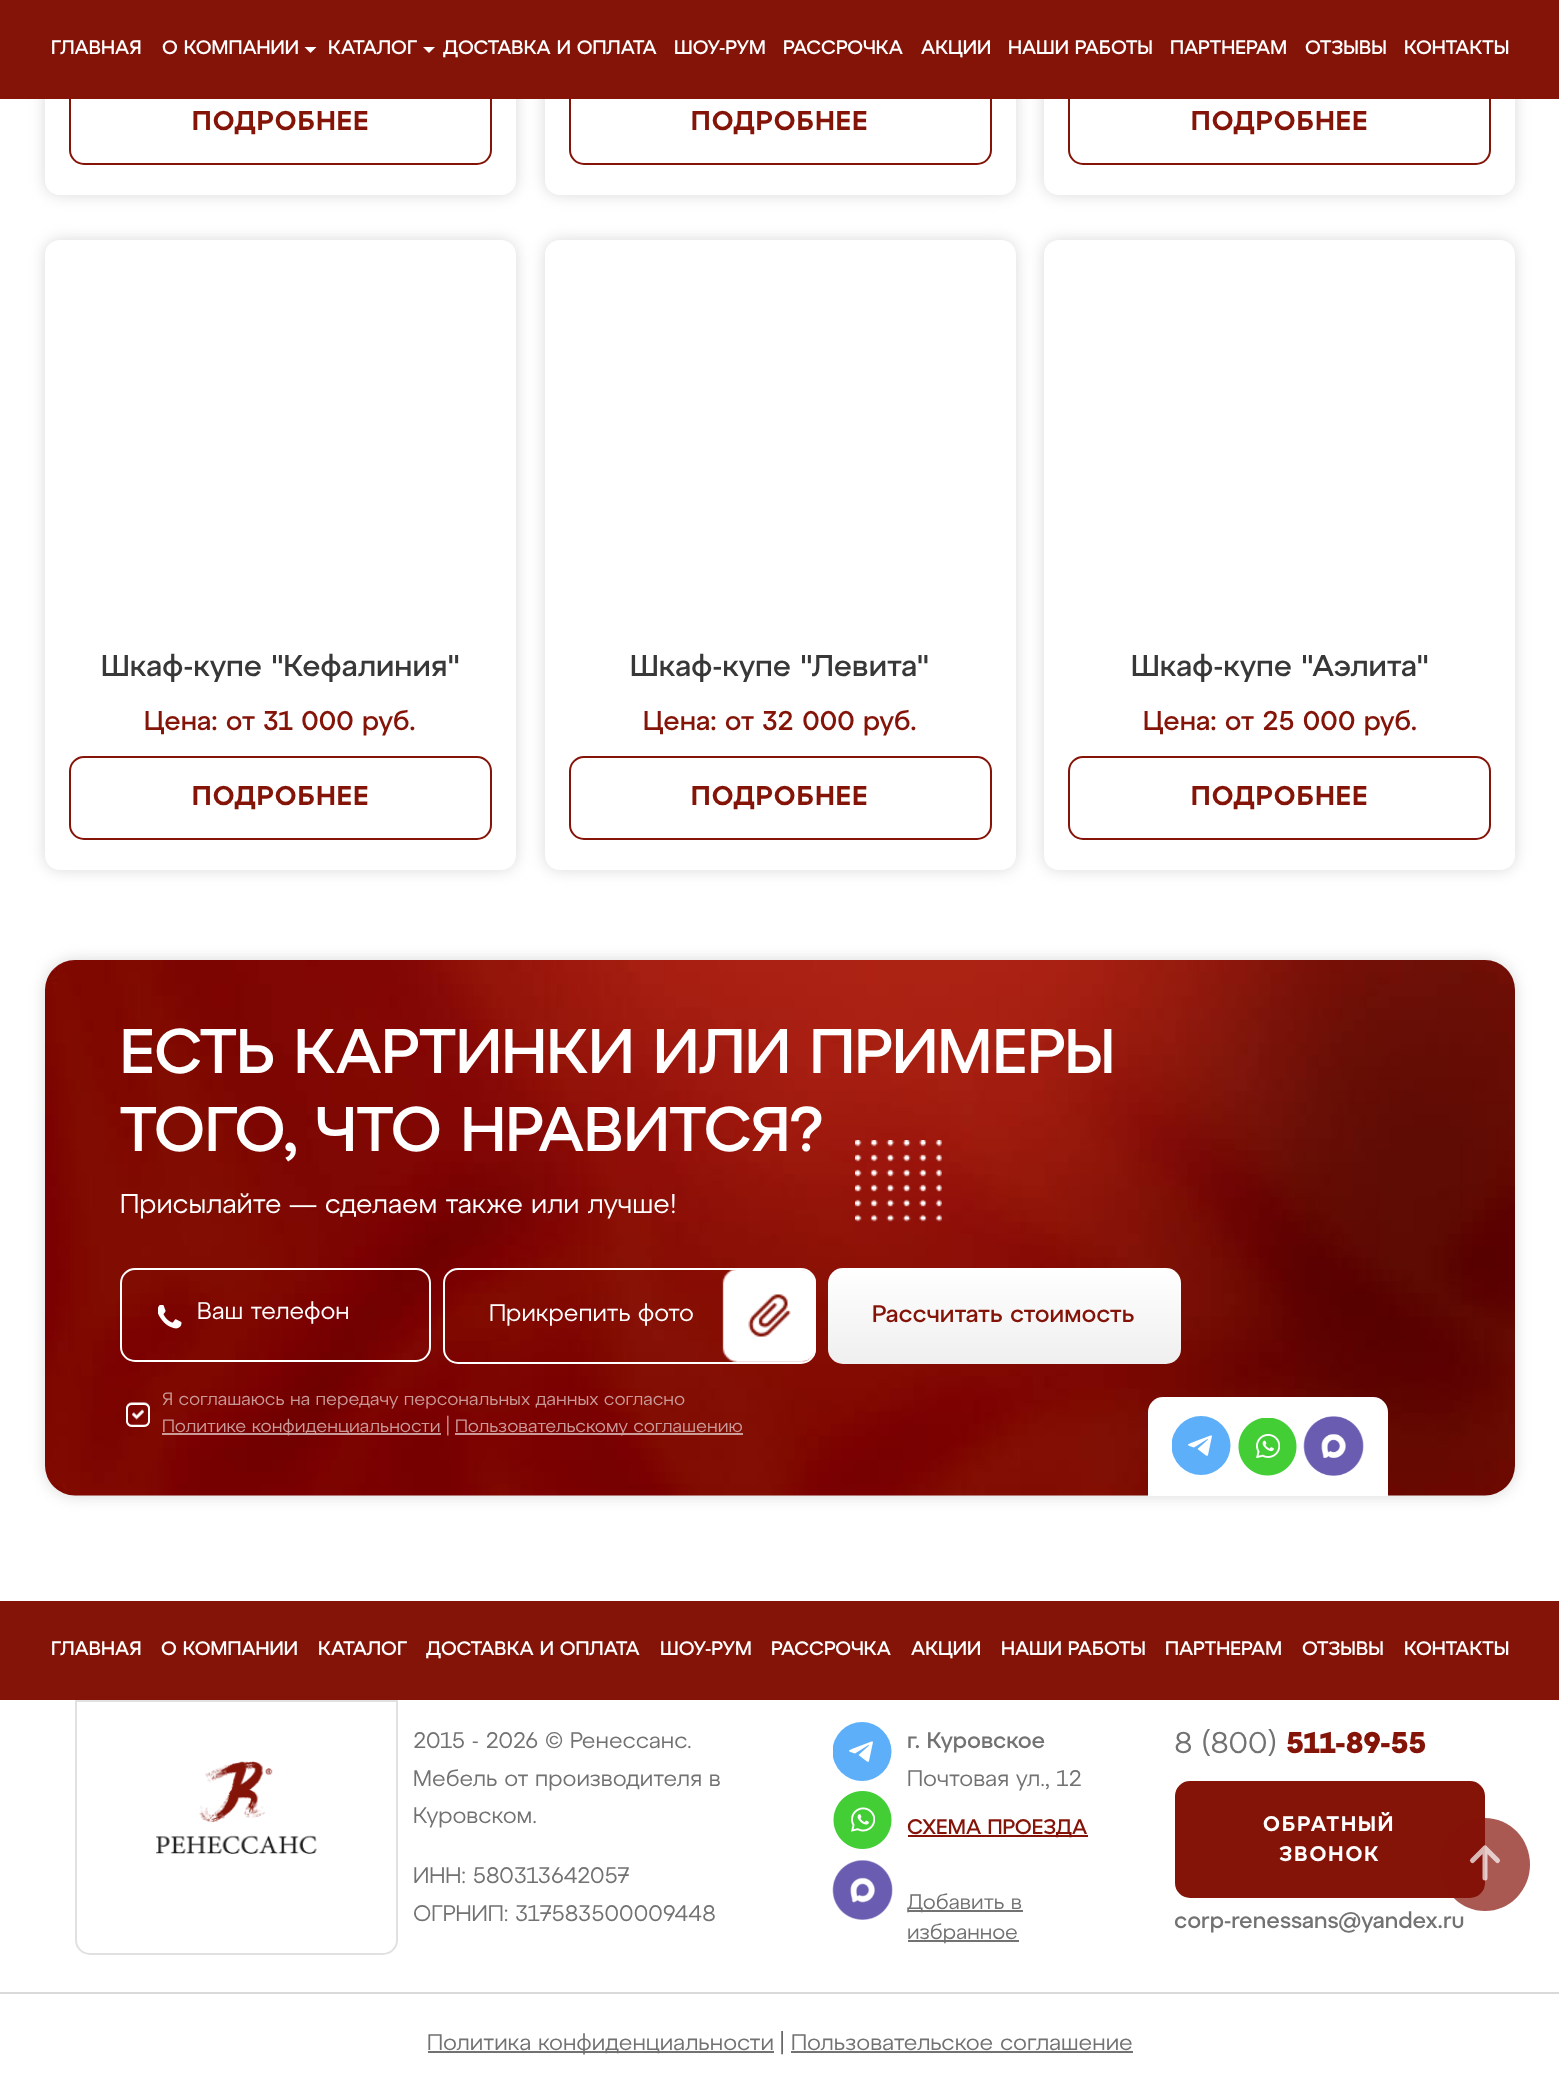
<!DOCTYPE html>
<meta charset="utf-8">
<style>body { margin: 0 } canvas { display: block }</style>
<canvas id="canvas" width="1559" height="2090"></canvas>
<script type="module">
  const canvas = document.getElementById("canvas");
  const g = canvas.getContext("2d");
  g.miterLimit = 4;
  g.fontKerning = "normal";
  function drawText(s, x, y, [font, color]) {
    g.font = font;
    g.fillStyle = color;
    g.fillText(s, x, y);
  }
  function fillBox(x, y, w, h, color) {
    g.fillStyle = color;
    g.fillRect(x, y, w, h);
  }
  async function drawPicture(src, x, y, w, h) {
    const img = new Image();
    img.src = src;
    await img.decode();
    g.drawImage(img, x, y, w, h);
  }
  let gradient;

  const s1 = ["500 19.5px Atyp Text", "#FFFFFF"];
  const s2 = ["600 27px Atyp Text", "#841308"];
  const s3 = ["500 30px Atyp Text", "#383838"];
  const s4 = ["500 27px Atyp Text", "#841308"];
  const s5 = ["500 63px Atyp Text", "#FFFFFF"];
  const s6 = ["27px Atyp Text", "#FFFFFF"];
  const s7 = ["24px Atyp Text", "#FFFFFF"];
  const s8 = ["500 24px Atyp Text", "#841308"];
  const s9 = ["18px Atyp Text", "#CA9A99"];
  const s10 = ["22.5px Atyp Text", "#727272"];
  const s11 = ["500 22.5px Atyp Text", "#727272"];
  const s12 = ["500 21px Atyp Text", "#841308"];
  const s13 = ["21px Atyp Text", "#727272"];
  const s14 = ["30px Atyp Text", "#727272"];
  const s15 = ["bold 30px Atyp Text", "#841308"];
  const s16 = ["600 21px Atyp Text", "#FFFFFF"];
  const s17 = ["21px Atyp Text", "#505050"];

  fillBox(0, 0, 1559, 2090, "#FFFFFF");
  g.save();
  g.beginPath();
  g.moveTo(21, 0);
  g.lineTo(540, 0);
  g.lineTo(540, 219);
  g.lineTo(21, 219);
  g.closePath();
  g.moveTo(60, -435);
  g.lineTo(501, -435);
  g.bezierCurveTo(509.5, -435, 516, -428.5, 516, -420);
  g.lineTo(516, 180);
  g.bezierCurveTo(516, 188.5, 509.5, 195, 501, 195);
  g.lineTo(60, 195);
  g.bezierCurveTo(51.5, 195, 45, 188.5, 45, 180);
  g.lineTo(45, -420);
  g.bezierCurveTo(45, -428.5, 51.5, -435, 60, -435);
  g.closePath();
  g.clip("evenodd");
  g.fillStyle = "#D9D9D9";
  g.filter = "blur(7.5px)";
  g.beginPath();
  g.roundRect(45, -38, 471, 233, 15);
  g.fill();
  g.filter = "none";
  g.restore();
  g.beginPath();
  g.roundRect(70, 82, 421, 82, 14);
  g.strokeStyle = "#841308";
  g.lineWidth = 2;
  g.stroke();
  g.save();
  g.beginPath();
  g.moveTo(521, 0);
  g.lineTo(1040, 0);
  g.lineTo(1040, 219);
  g.lineTo(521, 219);
  g.closePath();
  g.moveTo(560, -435);
  g.lineTo(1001, -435);
  g.bezierCurveTo(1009.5, -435, 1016, -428.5, 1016, -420);
  g.lineTo(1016, 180);
  g.bezierCurveTo(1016, 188.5, 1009.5, 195, 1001, 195);
  g.lineTo(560, 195);
  g.bezierCurveTo(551.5, 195, 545, 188.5, 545, 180);
  g.lineTo(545, -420);
  g.bezierCurveTo(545, -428.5, 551.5, -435, 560, -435);
  g.closePath();
  g.clip("evenodd");
  g.fillStyle = "#D9D9D9";
  g.filter = "blur(7.5px)";
  g.beginPath();
  g.roundRect(545, -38, 471, 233, 15);
  g.fill();
  g.filter = "none";
  g.restore();
  g.beginPath();
  g.roundRect(570, 82, 421, 82, 14);
  g.stroke();
  g.save();
  g.beginPath();
  g.moveTo(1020, 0);
  g.lineTo(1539, 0);
  g.lineTo(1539, 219);
  g.lineTo(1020, 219);
  g.closePath();
  g.moveTo(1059, -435);
  g.lineTo(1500, -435);
  g.bezierCurveTo(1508.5, -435, 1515, -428.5, 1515, -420);
  g.lineTo(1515, 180);
  g.bezierCurveTo(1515, 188.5, 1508.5, 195, 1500, 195);
  g.lineTo(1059, 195);
  g.bezierCurveTo(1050.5, 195, 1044, 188.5, 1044, 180);
  g.lineTo(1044, -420);
  g.bezierCurveTo(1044, -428.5, 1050.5, -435, 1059, -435);
  g.closePath();
  g.clip("evenodd");
  g.fillStyle = "#D9D9D9";
  g.filter = "blur(7.5px)";
  g.beginPath();
  g.roundRect(1044, -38, 471, 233, 15);
  g.fill();
  g.filter = "none";
  g.restore();
  g.beginPath();
  g.roundRect(1069, 82, 421, 82, 14);
  g.stroke();
  fillBox(0, 0, 1559, 99, "#841308");
  drawText("ГЛАВНАЯ", 51, 54, s1);
  drawText("О КОМПАНИИ", 162, 54, s1);
  g.beginPath();
  g.moveTo(310.5, 53);
  g.lineTo(304.5, 47);
  g.lineTo(316.5, 47);
  g.closePath();
  g.fill();
  drawText("КАТАЛОГ", 328, 54, s1);
  g.beginPath();
  g.moveTo(429, 53);
  g.lineTo(423, 47);
  g.lineTo(435, 47);
  g.closePath();
  g.fill();
  drawText("ДОСТАВКА И ОПЛАТА", 443, 54, s1);
  drawText("ШОУ-РУМ", 674, 54, s1);
  drawText("РАССРОЧКА", 783, 54, s1);
  drawText("АКЦИИ", 921, 54, s1);
  drawText("НАШИ РАБОТЫ", 1008, 54, s1);
  drawText("ПАРТНЕРАМ", 1170, 54, s1);
  drawText("ОТЗЫВЫ", 1305, 54, s1);
  drawText("КОНТАКТЫ", 1404, 54, s1);
  g.letterSpacing = "1.25px";
  drawText("ПОДРОБНЕЕ", 192, 130, s2);
  drawText("ПОДРОБНЕЕ", 691, 130, s2);
  drawText("ПОДРОБНЕЕ", 1191, 130, s2);
  g.save();
  g.beginPath();
  g.moveTo(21, 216);
  g.lineTo(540, 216);
  g.lineTo(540, 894);
  g.lineTo(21, 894);
  g.closePath();
  g.moveTo(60, 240);
  g.lineTo(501, 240);
  g.bezierCurveTo(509.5, 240, 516, 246.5, 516, 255);
  g.lineTo(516, 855);
  g.bezierCurveTo(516, 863.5, 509.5, 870, 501, 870);
  g.lineTo(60, 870);
  g.bezierCurveTo(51.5, 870, 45, 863.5, 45, 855);
  g.lineTo(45, 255);
  g.bezierCurveTo(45, 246.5, 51.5, 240, 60, 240);
  g.closePath();
  g.clip("evenodd");
  g.fillStyle = "#D9D9D9";
  g.filter = "blur(7.5px)";
  g.beginPath();
  g.roundRect(45, 240, 471, 630, 15);
  g.fill();
  g.filter = "none";
  g.restore();
  g.letterSpacing = "0px";
  drawText("Шкаф-купе \"Кефалиния\"", 101, 676, s3);
  drawText("Цена: от 31 000 руб.", 144, 730, s4);
  g.beginPath();
  g.roundRect(70, 757, 421, 82, 14);
  g.stroke();
  g.letterSpacing = "1.25px";
  drawText("ПОДРОБНЕЕ", 192, 805, s2);
  g.save();
  g.beginPath();
  g.moveTo(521, 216);
  g.lineTo(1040, 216);
  g.lineTo(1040, 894);
  g.lineTo(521, 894);
  g.closePath();
  g.moveTo(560, 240);
  g.lineTo(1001, 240);
  g.bezierCurveTo(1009.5, 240, 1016, 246.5, 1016, 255);
  g.lineTo(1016, 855);
  g.bezierCurveTo(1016, 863.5, 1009.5, 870, 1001, 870);
  g.lineTo(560, 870);
  g.bezierCurveTo(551.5, 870, 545, 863.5, 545, 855);
  g.lineTo(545, 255);
  g.bezierCurveTo(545, 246.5, 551.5, 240, 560, 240);
  g.closePath();
  g.clip("evenodd");
  g.fillStyle = "#D9D9D9";
  g.filter = "blur(7.5px)";
  g.beginPath();
  g.roundRect(545, 240, 471, 630, 15);
  g.fill();
  g.filter = "none";
  g.restore();
  g.letterSpacing = "0px";
  drawText("Шкаф-купе \"Левита\"", 630, 676, s3);
  drawText("Цена: от 32 000 руб.", 643, 730, s4);
  g.beginPath();
  g.roundRect(570, 757, 421, 82, 14);
  g.stroke();
  g.letterSpacing = "1.25px";
  drawText("ПОДРОБНЕЕ", 691, 805, s2);
  g.save();
  g.beginPath();
  g.moveTo(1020, 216);
  g.lineTo(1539, 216);
  g.lineTo(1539, 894);
  g.lineTo(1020, 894);
  g.closePath();
  g.moveTo(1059, 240);
  g.lineTo(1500, 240);
  g.bezierCurveTo(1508.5, 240, 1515, 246.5, 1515, 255);
  g.lineTo(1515, 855);
  g.bezierCurveTo(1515, 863.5, 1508.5, 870, 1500, 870);
  g.lineTo(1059, 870);
  g.bezierCurveTo(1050.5, 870, 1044, 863.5, 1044, 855);
  g.lineTo(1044, 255);
  g.bezierCurveTo(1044, 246.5, 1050.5, 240, 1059, 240);
  g.closePath();
  g.clip("evenodd");
  g.fillStyle = "#D9D9D9";
  g.filter = "blur(7.5px)";
  g.beginPath();
  g.roundRect(1044, 240, 471, 630, 15);
  g.fill();
  g.filter = "none";
  g.restore();
  g.letterSpacing = "0px";
  drawText("Шкаф-купе \"Аэлита\"", 1131, 676, s3);
  drawText("Цена: от 25 000 руб.", 1143, 730, s4);
  g.beginPath();
  g.roundRect(1069, 757, 421, 82, 14);
  g.stroke();
  g.letterSpacing = "1.25px";
  drawText("ПОДРОБНЕЕ", 1191, 805, s2);
  g.fillStyle = "#D9D9D9";
  g.filter = "blur(7.5px)";
  g.beginPath();
  g.roundRect(45, 960, 1470, 536, 30);
  g.fill();
  g.filter = "none";
  await drawPicture("pic1.png", 45, 960, 1470, 536);
  g.letterSpacing = "0px";
  drawText("ЕСТЬ КАРТИНКИ ИЛИ ПРИМЕРЫ", 120, 1073, s5);
  drawText("ТОГО, ЧТО НРАВИТСЯ?", 120, 1151, s5);
  drawText("Присылайте — сделаем также или лучше!", 120, 1213, s6);
  await drawPicture("pic2.png", 855, 1140, 87, 82);
  g.beginPath();
  g.roundRect(121, 1269, 309, 92, 14);
  g.strokeStyle = "#FFFFFF";
  g.stroke();
  await drawPicture("pic3.png", 158, 1305, 24, 24);
  drawText("Ваш телефон", 197, 1319, s7);
  g.beginPath();
  g.roundRect(444, 1269, 371, 94, 14);
  g.stroke();
  drawText("Прикрепить фото", 489, 1321, s7);
  await drawPicture("pic4.png", 722, 1269, 94, 93);
  gradient = g.createLinearGradient(1004, 1268, 1004, 1364);
  gradient.addColorStop(0, "#FFFFFF");
  gradient.addColorStop(1, "#EFEFEF");
  g.fillStyle = gradient;
  g.beginPath();
  g.roundRect(828, 1268, 353, 96, 15);
  g.fill();
  drawText("Рассчитать стоимость", 872, 1322, s8);
  g.beginPath();
  g.roundRect(127, 1404, 22, 22, 5);
  g.stroke();
  await drawPicture("pic5.png", 126, 1402, 24, 25);
  drawText("Я соглашаюсь на передачу персональных данных согласно", 162, 1405, s9);
  fillBox(162, 1433, 279, 2, "rgba(255, 255, 255, 0.6)");
  drawText("Политике конфиденциальности", 162, 1432, s9);
  drawText("|", 446, 1432, s9);
  fillBox(455, 1433, 288, 2, "rgba(255, 255, 255, 0.6)");
  drawText("Пользовательскому соглашению", 455, 1432, s9);
  g.fillStyle = "#FFFFFF";
  g.beginPath();
  g.roundRect(1148, 1397, 240, 99, [15, 15, 0, 0]);
  g.fill();
  g.save();
  g.beginPath();
  g.rect(1172, 1416, 60, 60);
  g.clip();
  g.fillStyle = "#5EAFF9";
  g.beginPath();
  g.arc(1201, 1445.5, 29.5, 0, Math.PI * 2);
  g.fill();
  g.restore();
  await drawPicture("pic6.png", 1238, 1418, 59, 58);
  await drawPicture("pic7.png", 1303, 1416, 61, 60);
  g.beginPath();
  g.moveTo(1212, 1436);
  g.lineTo(1208, 1455);
  g.bezierCurveTo(1208, 1455, 1207.5, 1456.5, 1206, 1455.5);
  g.lineTo(1197.5, 1449);
  g.lineTo(1207.5, 1440);
  g.lineTo(1208, 1439);
  g.lineTo(1207.5, 1439);
  g.lineTo(1194, 1447.5);
  g.bezierCurveTo(1185, 1444.5, 1186.5, 1445, 1196, 1441);
  g.lineTo(1210.5, 1435.5);
  g.bezierCurveTo(1211, 1435.5, 1212, 1435.5, 1212, 1436);
  g.closePath();
  g.fill();
  fillBox(0, 1601, 1559, 99, "#841308");
  drawText("ГЛАВНАЯ", 51, 1655, s1);
  drawText("О КОМПАНИИ", 161, 1655, s1);
  drawText("КАТАЛОГ", 318, 1655, s1);
  drawText("ДОСТАВКА И ОПЛАТА", 426, 1655, s1);
  drawText("ШОУ-РУМ", 660, 1655, s1);
  drawText("РАССРОЧКА", 771, 1655, s1);
  drawText("АКЦИИ", 911, 1655, s1);
  drawText("НАШИ РАБОТЫ", 1001, 1655, s1);
  drawText("ПАРТНЕРАМ", 1165, 1655, s1);
  drawText("ОТЗЫВЫ", 1302, 1655, s1);
  drawText("КОНТАКТЫ", 1404, 1655, s1);
  g.beginPath();
  g.roundRect(76, 1701, 321, 253, [0, 0, 14, 14]);
  g.strokeStyle = "#E1E1E1";
  g.stroke();
  await drawPicture("pic8.png", 156, 1761, 161, 93);
  drawText("2015 - 2026 © Ренессанс.", 413, 1748, s10);
  drawText("Мебель от производителя в", 413, 1786, s10);
  drawText("Куровском.", 413, 1823, s10);
  drawText("ИНН: 580313642057", 413, 1883, s10);
  drawText("ОГРНИП: 317583500009448", 413, 1921, s10);
  g.save();
  g.beginPath();
  g.rect(833, 1722, 60, 60);
  g.clip();
  g.fillStyle = "#5EAFF9";
  g.beginPath();
  g.arc(862, 1751.5, 29.5, 0, Math.PI * 2);
  g.fill();
  g.restore();
  g.fillStyle = "#FFFFFF";
  g.beginPath();
  g.moveTo(873, 1742);
  g.lineTo(869, 1761);
  g.bezierCurveTo(869, 1761, 868.5, 1762.5, 867, 1761.5);
  g.lineTo(858.5, 1755);
  g.lineTo(868.5, 1746);
  g.lineTo(869, 1745);
  g.lineTo(868.5, 1745);
  g.lineTo(855, 1753.5);
  g.bezierCurveTo(846, 1750.5, 847.5, 1751, 857, 1747);
  g.lineTo(871.5, 1741.5);
  g.bezierCurveTo(872, 1741.5, 873, 1741.5, 873, 1742);
  g.closePath();
  g.fill();
  await drawPicture("pic9.png", 833, 1791, 59, 58);
  await drawPicture("pic10.png", 832, 1860, 61, 60);
  drawText("г. Куровское", 907, 1748, s11);
  drawText("Почтовая ул., 12", 907, 1786, s10);
  fillBox(908, 1835, 180, 2, "#841308");
  drawText("СХЕМА ПРОЕЗДА", 907, 1834, s12);
  fillBox(908, 1910, 115, 2, "#727272");
  drawText("Добавить в", 907, 1909, s13);
  fillBox(908, 1940, 111, 2, "#727272");
  drawText("избранное", 907, 1939, s13);
  drawText("8 (800)", 1174, 1753, s14);
  drawText("511-89-55", 1286, 1753, s15);
  g.beginPath();
  g.roundRect(1176, 1782, 308, 115, 14);
  g.fill();
  g.strokeStyle = "#841308";
  g.stroke();
  g.letterSpacing = "2px";
  drawText("ОБРАТНЫЙ", 1263, 1831, s16);
  drawText("ЗВОНОК", 1279, 1861, s16);
  g.letterSpacing = "0px";
  drawText("corp-renessans@yandex.ru", 1174, 1928, s11);
  g.fillStyle = "rgba(132, 19, 8, 0.7)";
  g.beginPath();
  g.ellipse(1485, 1864.5, 45, 46.5, 0, 0, Math.PI * 2);
  g.fill();
  g.beginPath();
  g.moveTo(1485, 1848);
  g.lineTo(1485, 1878);
  g.moveTo(1485, 1848);
  g.lineTo(1472.5, 1860.5);
  g.moveTo(1485, 1848);
  g.lineTo(1497.5, 1860.5);
  g.strokeStyle = "rgba(255, 255, 255, 0.7)";
  g.lineWidth = 5;
  g.lineCap = "round";
  g.lineJoin = "round";
  g.stroke();
  fillBox(0, 1992, 1559, 2, "#D9D9D9");
  fillBox(428, 2051, 346, 2, "#727272");
  drawText("Политика конфиденциальности", 427, 2050, s10);
  drawText("|", 780, 2050, s17);
  drawText("Пользовательское соглашение", 791, 2050, s10);
  fillBox(791, 2051, 342, 2, "#727272");
</script>
